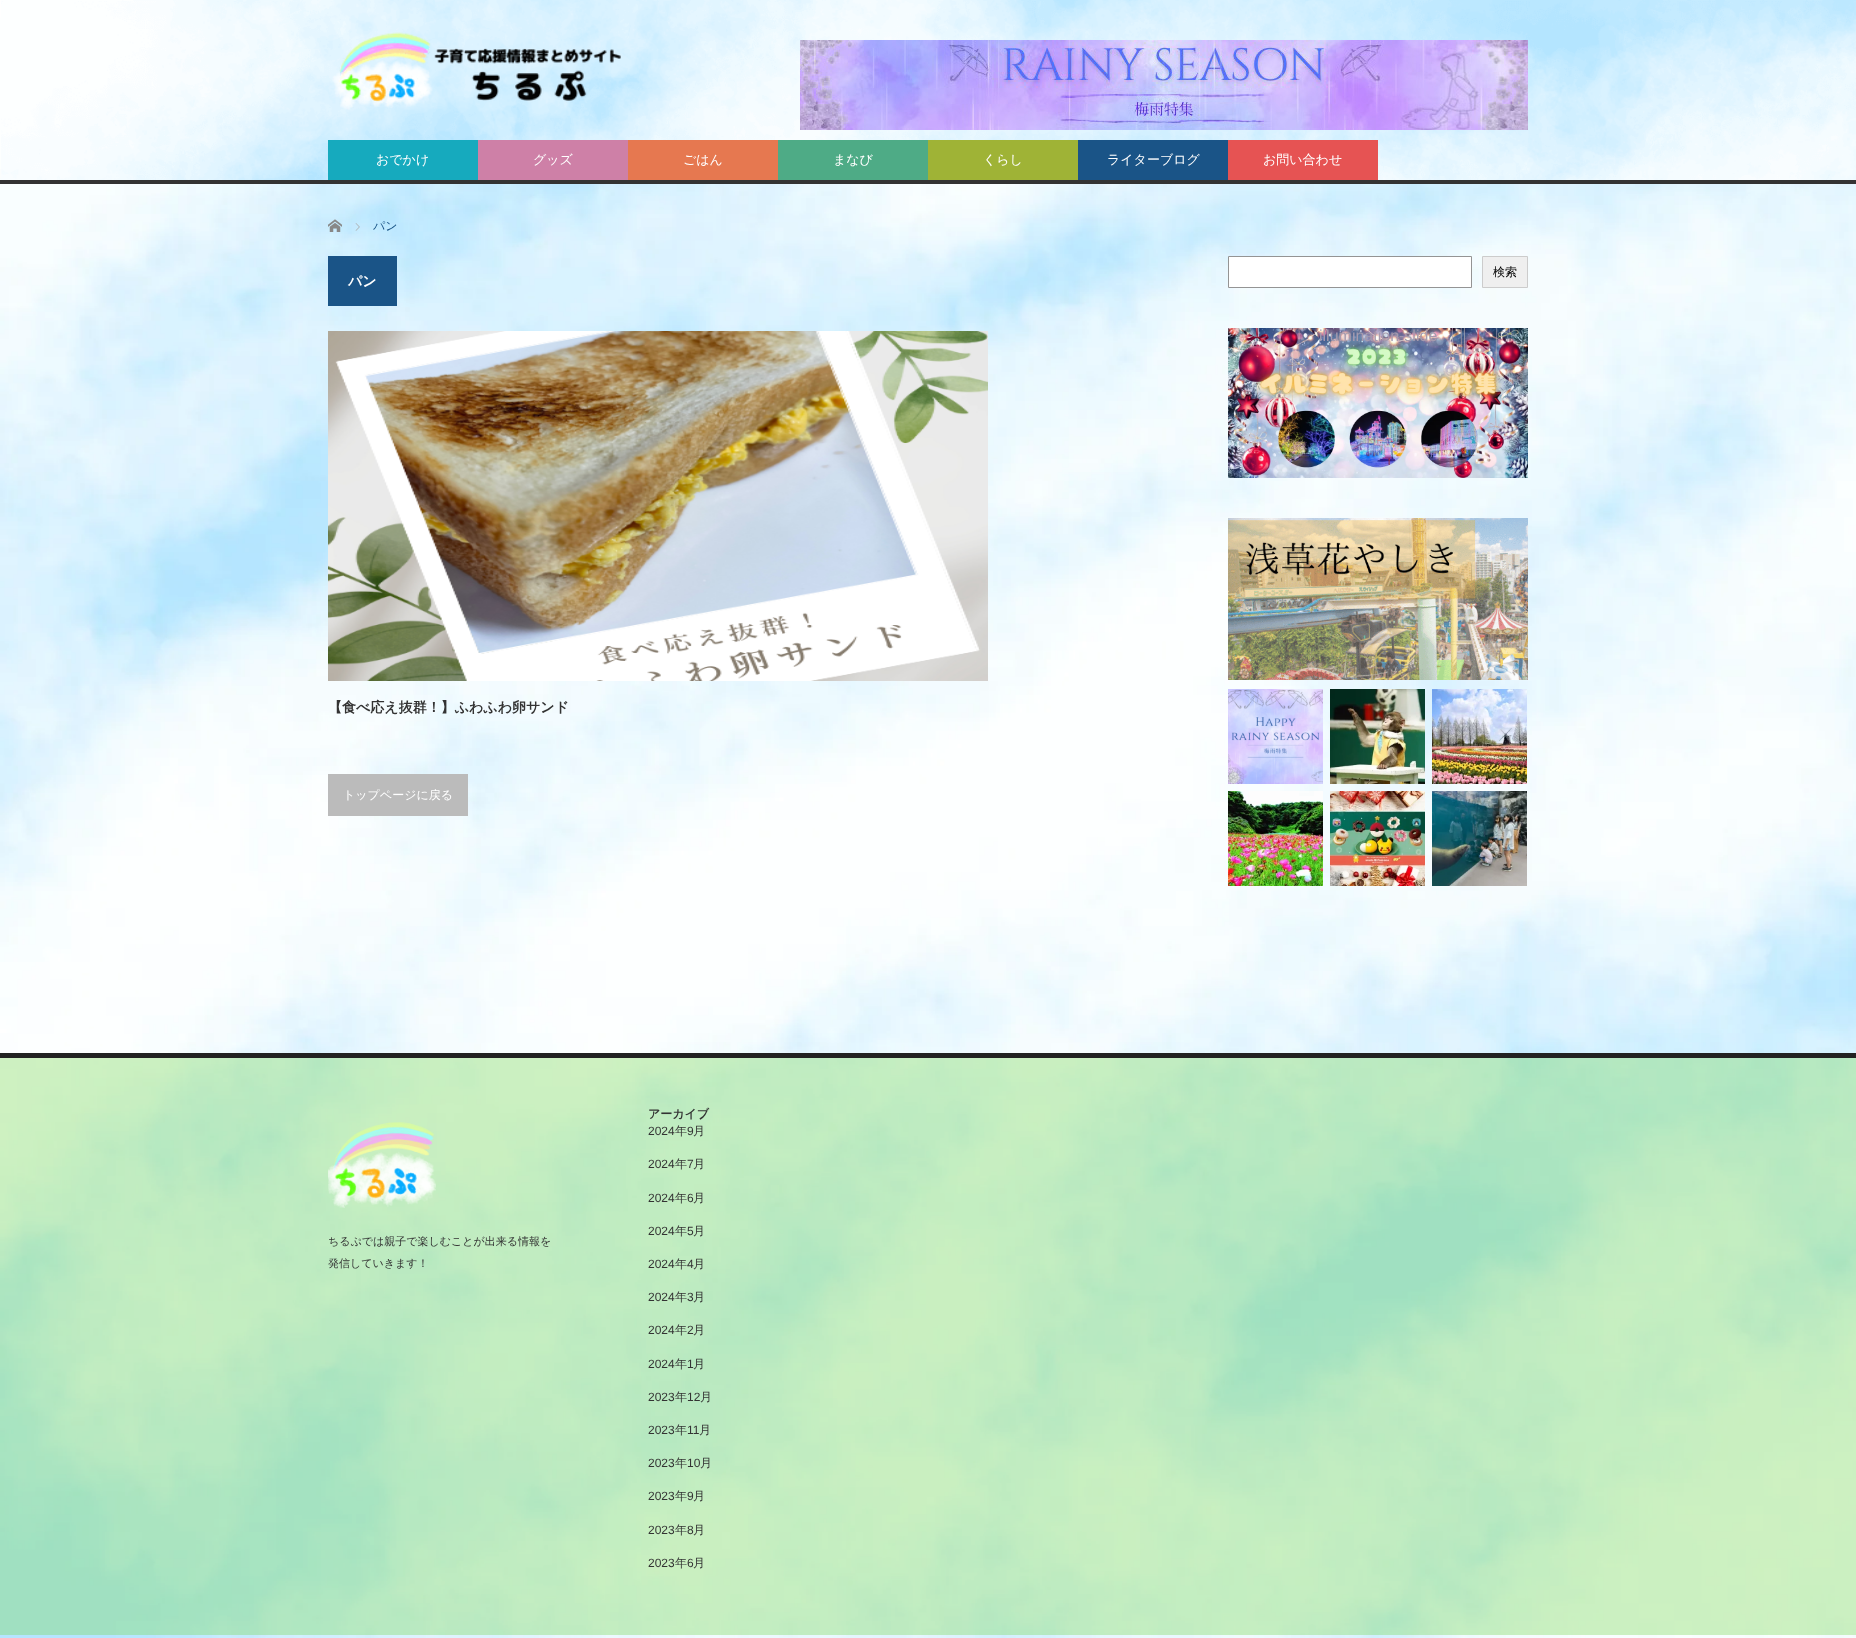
<!DOCTYPE html>
<meta charset="utf-8">
<style>body { margin: 0 } canvas { display: block }</style>
<canvas id="canvas" width="1856" height="1638"></canvas>
<script type="module">
  const canvas = document.getElementById("canvas");
  const g = canvas.getContext("2d");
  g.miterLimit = 4;
  g.fontKerning = "normal";
  function drawText(s, x, y, [font, color]) {
    g.font = font;
    g.fillStyle = color;
    g.fillText(s, x, y);
  }
  function fillBox(x, y, w, h, color) {
    g.fillStyle = color;
    g.fillRect(x, y, w, h);
  }
  async function drawPicture(src, x, y, w, h) {
    const img = new Image();
    img.src = src;
    await img.decode();
    g.drawImage(img, x, y, w, h);
  }

  const s1 = ["500 13px WenQuanYi Zen Hei", "#FFFFFF"];
  const s2 = ["500 12px WenQuanYi Zen Hei", "#1A5487"];
  const s3 = ["bold 14px WenQuanYi Zen Hei", "#FFFFFF"];
  const s4 = ["bold 14px WenQuanYi Zen Hei", "#333333"];
  const s5 = ["500 12px WenQuanYi Zen Hei", "#FFFFFF"];
  const s6 = ["500 12px WenQuanYi Zen Hei", "#000000"];
  const s7 = ["16px Liberation Sans", "#A69BAE"];
  const s8 = ["500 11px WenQuanYi Zen Hei", "#333333"];
  const s9 = ["bold 12px WenQuanYi Zen Hei", "#333333"];
  const s10 = ["12px Liberation Sans", "#333333"];
  const s11 = ["500 12px WenQuanYi Zen Hei", "#333333"];

  fillBox(0, 0, 1856, 1638, "#FFFFFF");
  await drawPicture("pic1.png", 0, 0, 1856, 1638);
  await drawPicture("pic2.png", 1, 0, 1855, 180);
  fillBox(0, 180, 1856, 4, "#333333");
  await drawPicture("pic3.png", 332, 32, 289, 78);
  await drawPicture("pic4.png", 800, 40, 728, 90);
  fillBox(328, 140, 150, 40, "#16AABE");
  drawText("おでかけ", 376, 164, s1);
  fillBox(478, 140, 150, 40, "#CE80A7");
  drawText("グッズ", 533, 164, s1);
  fillBox(628, 140, 150, 40, "#E67850");
  drawText("ごはん", 683, 164, s1);
  fillBox(778, 140, 150, 40, "#4EAB86");
  drawText("まなび", 833, 164, s1);
  fillBox(928, 140, 150, 40, "#9FB336");
  drawText("くらし", 983, 164, s1);
  fillBox(1078, 140, 150, 40, "#1A5487");
  drawText("ライターブログ", 1107, 164, s1);
  fillBox(1228, 140, 150, 40, "#E65353");
  drawText("お問い合わせ", 1263, 164, s1);
  await drawPicture("pic5.png", 328, 219, 14, 13);
  await drawPicture("pic6.png", 355, 223, 5, 8);
  drawText("パン", 373, 230, s2);
  fillBox(328, 256, 69, 50, "#1A5487");
  drawText("パン", 348, 286, s3);
  await drawPicture("pic7.png", 328, 331, 660, 350);
  drawText("【食べ応え抜群！】ふわふわ卵サンド", 328, 712, s4);
  fillBox(328, 774, 140, 42, "#BBBBBB");
  drawText("トップページに戻る", 343, 799, s5);
  g.beginPath();
  g.rect(1228.5, 256.5, 243, 31);
  g.fill();
  g.strokeStyle = "#949494";
  g.stroke();
  g.fillStyle = "#EFEFEF";
  g.beginPath();
  g.rect(1482.5, 256.5, 45, 31);
  g.fill();
  g.strokeStyle = "#CCCCCC";
  g.stroke();
  drawText("検索", 1493, 276, s6);
  await drawPicture("pic8.png", 1228, 328, 300, 150);
  drawText("illumination-slide", 1319, 341, s7);
  await drawPicture("pic9.png", 1228, 518, 300, 162);
  await drawPicture("pic10.png", 1228, 689, 95, 95);
  await drawPicture("pic11.png", 1330, 689, 95, 95);
  await drawPicture("pic12.png", 1432, 689, 95, 95);
  await drawPicture("pic13.png", 1228, 791, 95, 95);
  await drawPicture("pic14.png", 1330, 791, 95, 95);
  await drawPicture("pic15.png", 1432, 791, 95, 95);
  fillBox(0, 1058, 1856, 577, "rgba(126, 217, 87, 0.37)");
  fillBox(0, 1053, 1856, 5, "#222222");
  await drawPicture("pic16.png", 328, 1122, 108, 86);
  drawText("ちるぷでは親子で楽しむことが出来る情報を", 328, 1245, s8);
  drawText("発信していきます！", 328, 1267, s8);
  drawText("アーカイブ", 648, 1118, s9);
  drawText("2024", 648, 1135, s10);
  drawText("年", 675, 1135, s11);
  drawText("9", 687, 1135, s10);
  drawText("月", 693, 1135, s11);
  drawText("2024", 648, 1168, s10);
  drawText("年", 675, 1168, s11);
  drawText("7", 687, 1168, s10);
  drawText("月", 693, 1168, s11);
  drawText("2024", 648, 1202, s10);
  drawText("年", 675, 1202, s11);
  drawText("6", 687, 1202, s10);
  drawText("月", 693, 1202, s11);
  drawText("2024", 648, 1235, s10);
  drawText("年", 675, 1235, s11);
  drawText("5", 687, 1235, s10);
  drawText("月", 693, 1235, s11);
  drawText("2024", 648, 1268, s10);
  drawText("年", 675, 1268, s11);
  drawText("4", 687, 1268, s10);
  drawText("月", 693, 1268, s11);
  drawText("2024", 648, 1301, s10);
  drawText("年", 675, 1301, s11);
  drawText("3", 687, 1301, s10);
  drawText("月", 693, 1301, s11);
  drawText("2024", 648, 1334, s10);
  drawText("年", 675, 1334, s11);
  drawText("2", 687, 1334, s10);
  drawText("月", 693, 1334, s11);
  drawText("2024", 648, 1368, s10);
  drawText("年", 675, 1368, s11);
  drawText("1", 687, 1368, s10);
  drawText("月", 693, 1368, s11);
  drawText("2023", 648, 1401, s10);
  drawText("年", 675, 1401, s11);
  drawText("12", 687, 1401, s10);
  drawText("月", 700, 1401, s11);
  drawText("2023", 648, 1434, s10);
  drawText("年", 675, 1434, s11);
  drawText("11", 687, 1434, s10);
  drawText("月", 699, 1434, s11);
  drawText("2023", 648, 1467, s10);
  drawText("年", 675, 1467, s11);
  drawText("10", 687, 1467, s10);
  drawText("月", 700, 1467, s11);
  drawText("2023", 648, 1500, s10);
  drawText("年", 675, 1500, s11);
  drawText("9", 687, 1500, s10);
  drawText("月", 693, 1500, s11);
  drawText("2023", 648, 1534, s10);
  drawText("年", 675, 1534, s11);
  drawText("8", 687, 1534, s10);
  drawText("月", 693, 1534, s11);
  drawText("2023", 648, 1567, s10);
  drawText("年", 675, 1567, s11);
  drawText("6", 687, 1567, s10);
  drawText("月", 693, 1567, s11);
</script>
